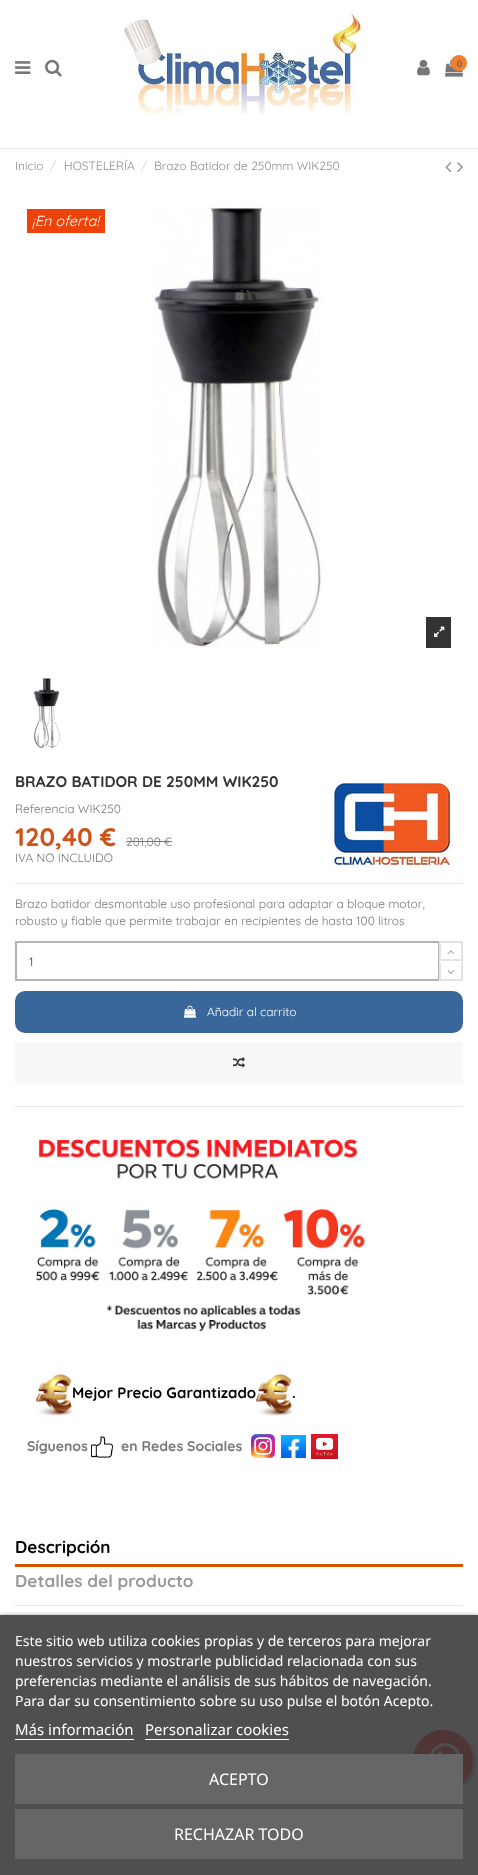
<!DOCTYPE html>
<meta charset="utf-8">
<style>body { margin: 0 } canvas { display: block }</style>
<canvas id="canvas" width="478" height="1875"></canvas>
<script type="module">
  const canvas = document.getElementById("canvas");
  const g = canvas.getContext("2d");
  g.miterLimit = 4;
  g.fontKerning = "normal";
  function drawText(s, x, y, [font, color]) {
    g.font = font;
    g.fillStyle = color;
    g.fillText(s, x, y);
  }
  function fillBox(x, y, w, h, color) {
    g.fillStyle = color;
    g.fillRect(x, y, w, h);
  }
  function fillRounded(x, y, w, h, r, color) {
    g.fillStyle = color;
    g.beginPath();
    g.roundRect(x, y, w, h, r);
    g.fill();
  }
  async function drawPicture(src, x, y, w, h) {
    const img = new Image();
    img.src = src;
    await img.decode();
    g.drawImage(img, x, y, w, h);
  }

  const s1 = ["10px Liberation Serif", "#575151"];
  const s2 = ["12px Quicksand", "#8F8F8F"];
  const s3 = ["12px Quicksand", "#D2D2D2"];
  const s4 = ["italic 14.5px Quicksand", "#FFFFFF"];
  const s5 = ["bold 15.4px Quicksand", "#333333"];
  const s6 = ["12px Quicksand", "#777777"];
  const s7 = ["bold 25.5px Quicksand", "#CE531A"];
  const s8 = ["12px Quicksand", "#333333"];
  const s9 = ["12px Quicksand", "#FFFFFF"];
  const s10 = ["bold 15px Quicksand", "#000000"];
  const s11 = ["bold 14px Quicksand", "#777777"];
  const s12 = ["bold 17.1px Quicksand", "#000000"];
  const s13 = ["bold 17.1px Quicksand", "#999999"];
  const s14 = ["14px Noto Sans", "#FFFFFF"];
  const s15 = ["15px Noto Sans", "#FFFFFF"];
  const s16 = ["16px Noto Sans", "#FFFFFF"];

  fillBox(0, 0, 478, 1875, "#FFFFFF");
  fillBox(0, 1615, 478, 260, "#4F4F4F");
  fillBox(0, 148, 478, 1, "#E3E3E3");
  await drawPicture("pic1.png", 15, 61, 16, 13);
  await drawPicture("pic2.png", 45, 59, 17, 18);
  await drawPicture("pic3.png", 123, 11, 241, 104);
  await drawPicture("pic4.png", 417, 59, 13, 17);
  await drawPicture("pic5.png", 445, 58, 18, 19);
  g.fillStyle = "#F07E2B";
  g.beginPath();
  g.arc(459, 63, 8, 0, Math.PI * 2);
  g.fill();
  drawText("0", 457, 67, s1);
  drawText("Inicio", 15, 170, s2);
  drawText("/", 50, 170, s3);
  drawText("HOSTELERÍA", 64, 170, s2);
  drawText("/", 141, 170, s3);
  drawText("Brazo Batidor de 250mm WIK250", 154, 170, s2);
  await drawPicture("pic6.png", 445, 162, 7, 11);
  await drawPicture("pic7.png", 457, 162, 6, 11);
  fillBox(27, 209, 78, 24, "#EE420B");
  drawText("¡En oferta!", 32, 226, s4);
  await drawPicture("pic8.png", 150, 204, 173, 444);
  fillBox(426, 617, 25, 31, "#333333");
  await drawPicture("pic9.png", 434, 626, 11, 11);
  await drawPicture("pic10.png", 33, 678, 28, 70);
  fillBox(15, 883, 448, 1, "#E7E7E7");
  drawText("BRAZO BATIDOR DE 250MM WIK250", 15, 787, s5);
  await drawPicture("pic11.png", 331, 780, 121, 88);
  drawText("Referencia WIK250", 15, 813, s6);
  drawText("120,40 €", 15, 846, s7);
  drawText("201,00 €", 126, 846, s6);
  fillBox(126, 841, 46, 1, "#777777");
  drawText("IVA NO INCLUIDO", 15, 862, s6);
  drawText("Brazo batidor desmontable uso profesional para adaptar a bloque motor,", 15, 908, s6);
  drawText("robusto y fiable que permite trabajar en recipientes de hasta 100 litros", 15, 925, s6);
  g.strokeStyle = "#B3B3B3";
  g.lineWidth = 2;
  g.strokeRect(16, 942, 423, 38);
  drawText("1", 29, 966, s8);
  g.strokeStyle = "#E3E3E3";
  g.strokeRect(440, 942, 22, 18);
  await drawPicture("pic12.png", 447, 950, 8, 5);
  fillBox(439, 961, 1, 18, "#FFFFFF");
  g.fillStyle = "#E3E3E3";
  g.beginPath();
  g.moveTo(463, 961);
  g.lineTo(463, 981);
  g.lineTo(461, 979);
  g.lineTo(461, 963);
  g.closePath();
  g.fill();
  fillBox(439, 979, 24, 2, "#E3E3E3");
  g.beginPath();
  g.moveTo(439, 981);
  g.lineTo(439, 961);
  g.lineTo(441, 963);
  g.lineTo(441, 979);
  g.closePath();
  g.fill();
  await drawPicture("pic13.png", 447, 970, 8, 4);
  fillRounded(15, 991, 448, 42, 10, "#396799");
  await drawPicture("pic14.png", 184, 1005, 12, 13);
  drawText("Añadir al carrito", 207, 1016, s9);
  fillBox(15, 1042, 448, 42, "#F8F8F8");
  await drawPicture("pic15.png", 233, 1057, 12, 11);
  fillBox(15, 1106, 448, 1, "#E7E7E7");
  await drawPicture("pic16.png", 36, 1138, 331, 194);
  await drawPicture("pic17.png", 36, 1374, 36, 42);
  drawText("Mejor Precio Garantizado", 72, 1398, s10);
  await drawPicture("pic17.png", 256, 1374, 36, 42);
  drawText(".", 292, 1398, s10);
  drawText("Síguenos", 27, 1451, s11);
  await drawPicture("pic18.png", 91, 1436, 22, 22);
  drawText("en Redes Sociales", 121, 1451, s11);
  await drawPicture("pic19.png", 251, 1434, 24, 24);
  await drawPicture("pic20.png", 281, 1435, 25, 23);
  await drawPicture("pic21.png", 311, 1434, 27, 25);
  fillBox(15, 1605, 448, 1, "#E7E7E7");
  fillBox(15, 1564, 448, 3, "#D15700");
  drawText("Descripción", 15, 1553, s12);
  drawText("Detalles del producto", 15, 1587, s13);
  g.fillStyle = "#414141";
  g.beginPath();
  g.arc(26, 1665, 2, 0, Math.PI * 2);
  g.fill();
  g.beginPath();
  g.arc(26, 1699, 2, 0, Math.PI * 2);
  g.fill();
  g.fillStyle = "#444444";
  g.filter = "blur(1.5px)";
  g.beginPath();
  g.roundRect(415, 1732, 60, 60, 30);
  g.fill();
  g.filter = "none";
  g.fillStyle = "#4F3535";
  g.beginPath();
  g.arc(443, 1760, 30, 0, Math.PI * 2);
  g.fill();
  await drawPicture("pic22.png", 430, 1743, 30, 11);
  g.save();
  g.beginPath();
  g.rect(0, 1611, 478, 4);
  g.clip();
  g.fillStyle = "#707070";
  g.filter = "blur(2.5px)";
  g.beginPath();
  g.rect(0, 1616, 478, 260);
  g.fill();
  g.filter = "none";
  g.restore();
  drawText("Este sitio web utiliza cookies propias y de terceros para mejorar", 15, 1646, s14);
  drawText("nuestros servicios y mostrarle publicidad relacionada con sus", 15, 1666, s14);
  drawText("preferencias mediante el análisis de sus hábitos de navegación.", 15, 1686, s14);
  drawText("Para dar su consentimiento sobre su uso pulse el botón Acepto.", 15, 1706, s14);
  drawText("Más información", 15, 1735, s15);
  fillBox(15, 1739, 119, 1, "#FFFFFF");
  drawText("Personalizar cookies", 145, 1735, s15);
  fillBox(145, 1739, 144, 1, "#FFFFFF");
  fillBox(15, 1754, 448, 50, "#666666");
  drawText("ACEPTO", 209, 1785, s16);
  fillBox(15, 1809, 448, 50, "#666666");
  drawText("RECHAZAR TODO", 174, 1840, s16);
</script>
